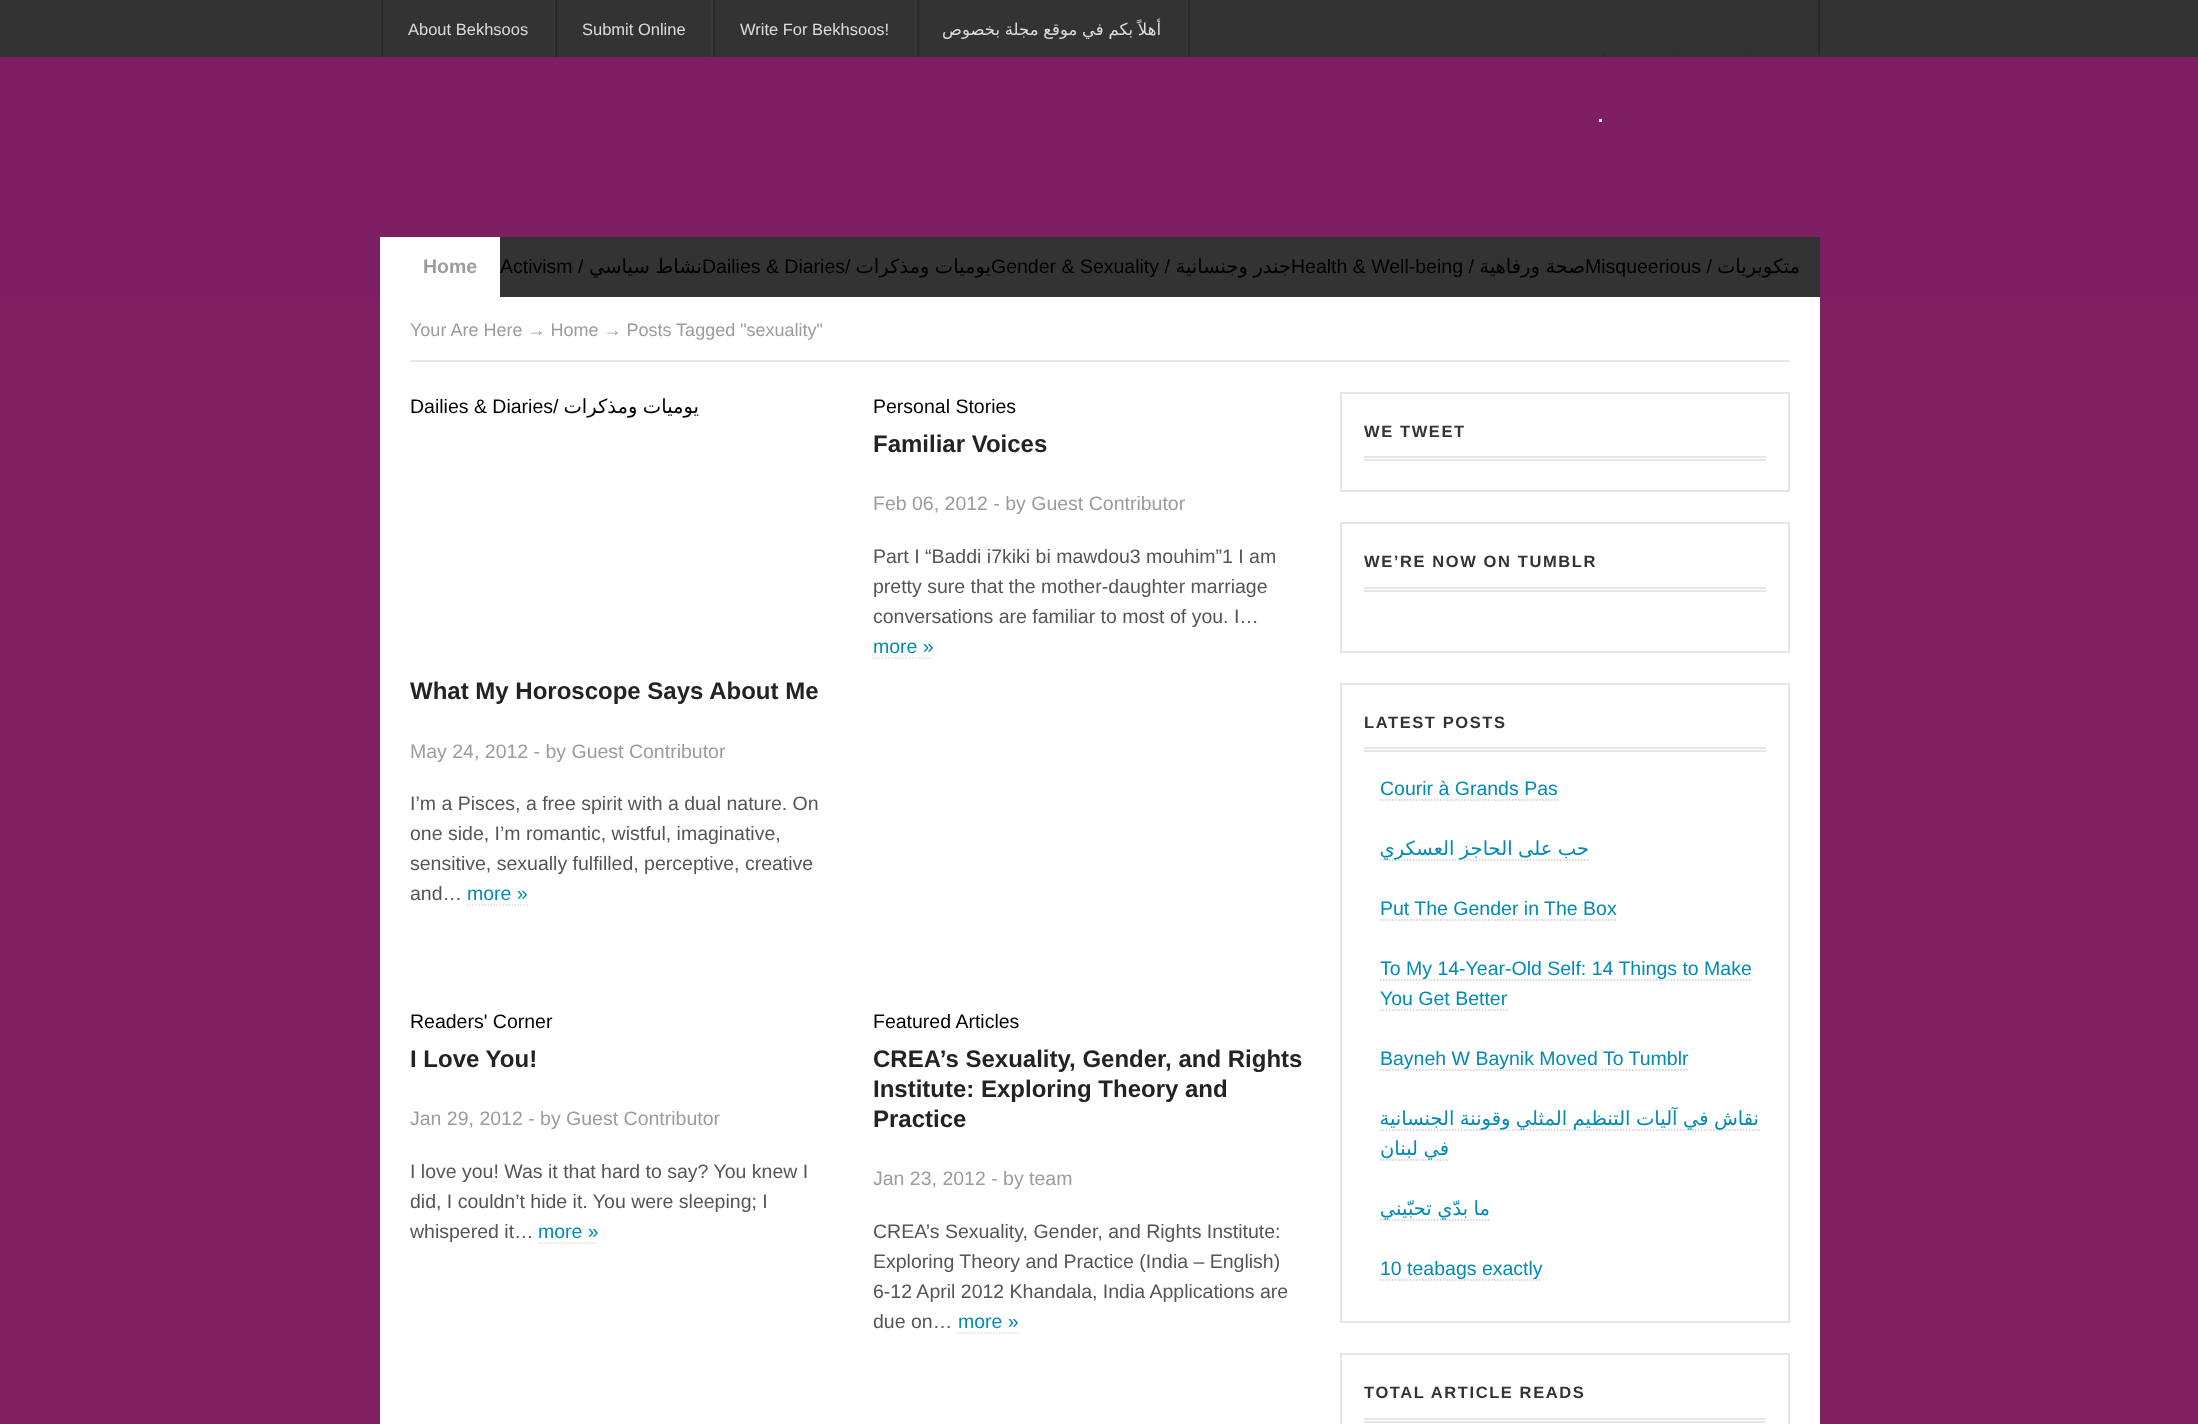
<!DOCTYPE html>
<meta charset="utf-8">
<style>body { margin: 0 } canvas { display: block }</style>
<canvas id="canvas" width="2198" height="1424"></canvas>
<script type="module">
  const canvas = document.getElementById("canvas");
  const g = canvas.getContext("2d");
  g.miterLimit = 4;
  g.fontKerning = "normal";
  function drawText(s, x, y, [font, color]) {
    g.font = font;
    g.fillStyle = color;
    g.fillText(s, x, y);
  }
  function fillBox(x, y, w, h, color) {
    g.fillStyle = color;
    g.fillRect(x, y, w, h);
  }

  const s1 = ["16.5px Liberation Sans", "#DDDDDD"];
  const s2 = ["16.5px DejaVu Sans", "#DDDDDD"];
  const s3 = ["19.5px Liberation Sans", "#000000"];
  const s4 = ["bold 19.5px Liberation Sans", "#9C9C9C"];
  const s5 = ["19.5px DejaVu Sans", "#000000"];
  const s6 = ["18px Liberation Sans", "#9C9C9C"];
  const s7 = ["bold 24px Liberation Sans", "#232323"];
  const s8 = ["19.5px Liberation Sans", "#9C9C9C"];
  const s9 = ["19.5px Liberation Sans", "#555555"];
  const s10 = ["19.5px Liberation Sans", "#008AB4"];
  const s11 = ["bold 16.5px Liberation Sans", "#333333"];
  const s12 = ["19.5px DejaVu Sans", "#008AB4"];

  fillBox(0, 0, 2198, 1424, "#812060");
  fillBox(0, 0, 2198, 57, "#333333");
  fillBox(1602, 54, 2, 3, "#2C2C2C");
  fillBox(1673, 54, 1, 3, "#373737");
  fillBox(1675, 54, 1, 3, "#2C2C2C");
  fillBox(1745, 54, 1, 3, "#373737");
  fillBox(1747, 54, 1, 3, "#2C2C2C");
  fillBox(1817, 54, 1, 3, "#373737");
  fillBox(1818, 0, 2, 57, "#292929");
  fillBox(1818, 54, 1, 3, "#343434");
  fillBox(380, 0, 1, 57, "#393939");
  fillBox(1188, 0, 2, 57, "#292929");
  fillBox(554, 0, 1, 57, "#393939");
  fillBox(381, 0, 2, 57, "#292929");
  drawText("About Bekhsoos", 408, 35, s1);
  fillBox(711, 0, 2, 57, "#393939");
  fillBox(555, 0, 2, 57, "#292929");
  drawText("Submit Online", 582, 35, s1);
  fillBox(915, 0, 2, 57, "#393939");
  fillBox(713, 0, 2, 57, "#292929");
  drawText("Write For Bekhsoos!", 740, 35, s1);
  fillBox(1187, 0, 1, 57, "#393939");
  fillBox(917, 0, 2, 57, "#292929");
  g.wordSpacing = "-0.5px";
  g.direction = "rtl";
  drawText("أهلاً بكم في موقع مجلة بخصوص", 1161, 35, s2);
  fillBox(0, 57, 2198, 240, "#7E1F63");
  fillBox(1599, 119, 3, 3, "#F0F0F0");
  fillBox(500, 237, 1320, 60, "#333333");
  g.wordSpacing = "0px";
  g.direction = "ltr";
  drawText("Activism /", 500, 273, s3);
  fillBox(380, 237, 120, 60, "#FFFFFF");
  drawText("Home", 423, 273, s4);
  g.wordSpacing = "-0.75px";
  g.direction = "rtl";
  drawText("نشاط سياسي", 702, 273, s5);
  g.wordSpacing = "0px";
  g.direction = "ltr";
  drawText("Dailies & Diaries/", 702, 273, s3);
  g.wordSpacing = "-0.75px";
  g.direction = "rtl";
  drawText("يوميات ومذكرات", 991, 273, s5);
  g.wordSpacing = "0px";
  g.direction = "ltr";
  drawText("Gender & Sexuality /", 991, 273, s3);
  g.wordSpacing = "-0.75px";
  g.direction = "rtl";
  drawText("جندر وجنسانية", 1291, 273, s5);
  g.wordSpacing = "0px";
  g.direction = "ltr";
  drawText("Health & Well-being /", 1291, 273, s3);
  g.wordSpacing = "-0.75px";
  g.direction = "rtl";
  drawText("صحة ورفاهية", 1585, 273, s5);
  g.wordSpacing = "0px";
  g.direction = "ltr";
  drawText("Misqueerious /", 1585, 273, s3);
  g.direction = "rtl";
  drawText("متكويريات", 1800, 273, s5);
  fillBox(380, 297, 1440, 1127, "#FFFFFF");
  fillBox(410, 360, 1380, 2, "#E6E6E6");
  g.direction = "ltr";
  drawText("Your Are Here → Home → Posts Tagged \"sexuality\"", 410, 336, s6);
  drawText("Dailies & Diaries/", 410, 413, s3);
  g.wordSpacing = "-0.75px";
  g.direction = "rtl";
  drawText("يوميات ومذكرات", 699, 413, s5);
  g.wordSpacing = "0px";
  g.direction = "ltr";
  drawText("What My Horoscope Says About Me", 410, 699, s7);
  drawText("May 24, 2012 - by Guest Contributor", 410, 758, s8);
  drawText("I’m a Pisces, a free spirit with a dual nature. On", 410, 810, s9);
  drawText("one side, I’m romantic, wistful, imaginative,", 410, 840, s9);
  drawText("sensitive, sexually fulfilled, perceptive, creative", 410, 870, s9);
  drawText("and…", 410, 900, s9);
  drawText("more »", 467, 900, s10);
  g.beginPath();
  g.moveTo(466.5, 905);
  g.lineTo(528, 905);
  g.strokeStyle = "#DDDDDD";
  g.lineWidth = 1.5;
  g.setLineDash([1.5, 1.5]);
  g.stroke();
  drawText("Personal Stories", 873, 413, s3);
  drawText("Familiar Voices", 873, 452, s7);
  drawText("Feb 06, 2012 - by Guest Contributor", 873, 510, s8);
  drawText("Part I “Baddi i7kiki bi mawdou3 mouhim”1 I am", 873, 563, s9);
  drawText("pretty sure that the mother-daughter marriage", 873, 593, s9);
  drawText("conversations are familiar to most of you. I…", 873, 623, s9);
  drawText("more »", 873, 653, s10);
  g.beginPath();
  g.moveTo(873, 658);
  g.lineTo(933, 658);
  g.stroke();
  drawText("Readers' Corner", 410, 1028, s3);
  drawText("I Love You!", 410, 1067, s7);
  drawText("Jan 29, 2012 - by Guest Contributor", 410, 1125, s8);
  drawText("I love you! Was it that hard to say? You knew I", 410, 1178, s9);
  drawText("did, I couldn’t hide it. You were sleeping; I", 410, 1208, s9);
  drawText("whispered it…", 410, 1238, s9);
  drawText("more »", 538, 1238, s10);
  g.beginPath();
  g.moveTo(538.5, 1243);
  g.lineTo(598.5, 1243);
  g.stroke();
  drawText("Featured Articles", 873, 1028, s3);
  drawText("CREA’s Sexuality, Gender, and Rights", 873, 1067, s7);
  drawText("Institute: Exploring Theory and", 873, 1097, s7);
  drawText("Practice", 873, 1127, s7);
  drawText("Jan 23, 2012 - by team", 873, 1185, s8);
  drawText("CREA’s Sexuality, Gender, and Rights Institute:", 873, 1238, s9);
  drawText("Exploring Theory and Practice (India – English)", 873, 1268, s9);
  drawText("6-12 April 2012 Khandala, India Applications are", 873, 1298, s9);
  drawText("due on…", 873, 1328, s9);
  drawText("more »", 958, 1328, s10);
  g.beginPath();
  g.moveTo(957, 1333);
  g.lineTo(1018.5, 1333);
  g.stroke();
  g.strokeStyle = "#E6E6E6";
  g.lineWidth = 2;
  g.setLineDash([]);
  g.strokeRect(1341, 393, 448, 98);
  fillBox(1364, 456, 402, 2, "#E6E6E6");
  fillBox(1364, 459, 402, 2, "#E6E6E6");
  g.letterSpacing = "1.6px";
  drawText("WE TWEET", 1364, 437, s11);
  g.strokeRect(1341, 523, 448, 129);
  fillBox(1364, 587, 402, 2, "#E6E6E6");
  fillBox(1364, 590, 402, 2, "#E6E6E6");
  drawText("WE’RE NOW ON TUMBLR", 1364, 567, s11);
  g.strokeRect(1341, 684, 448, 638);
  fillBox(1364, 747, 402, 2, "#E6E6E6");
  fillBox(1364, 750, 402, 2, "#E6E6E6");
  drawText("LATEST POSTS", 1364, 728, s11);
  g.letterSpacing = "0px";
  drawText("Courir à Grands Pas", 1380, 795, s10);
  g.beginPath();
  g.moveTo(1380, 800);
  g.lineTo(1558.5, 800);
  g.strokeStyle = "#CCCCCC";
  g.lineWidth = 1.5;
  g.setLineDash([1.5, 1.5]);
  g.stroke();
  g.beginPath();
  g.moveTo(1380, 860);
  g.lineTo(1590, 860);
  g.stroke();
  g.wordSpacing = "-0.75px";
  g.direction = "rtl";
  drawText("حب على الحاجز العسكري", 1589, 855, s12);
  g.wordSpacing = "0px";
  g.direction = "ltr";
  drawText("Put The Gender in The Box", 1380, 915, s10);
  g.beginPath();
  g.moveTo(1380, 920);
  g.lineTo(1617, 920);
  g.stroke();
  g.beginPath();
  g.moveTo(1380, 980);
  g.lineTo(1752, 980);
  g.stroke();
  drawText("To My 14-Year-Old Self: 14 Things to Make", 1380, 975, s10);
  drawText("You Get Better", 1380, 1005, s10);
  g.beginPath();
  g.moveTo(1380, 1010);
  g.lineTo(1507.5, 1010);
  g.stroke();
  g.beginPath();
  g.moveTo(1380, 1070);
  g.lineTo(1689, 1070);
  g.stroke();
  drawText("Bayneh W Baynik Moved To Tumblr", 1380, 1065, s10);
  g.beginPath();
  g.moveTo(1380, 1130);
  g.lineTo(1759.5, 1130);
  g.stroke();
  g.wordSpacing = "-0.75px";
  g.direction = "rtl";
  drawText("نقاش في آليات التنظيم المثلي وقوننة الجنسانية", 1759, 1125, s12);
  g.beginPath();
  g.moveTo(1380, 1160);
  g.lineTo(1449, 1160);
  g.stroke();
  drawText("في لبنان", 1449, 1155, s12);
  g.beginPath();
  g.moveTo(1380, 1220);
  g.lineTo(1489.5, 1220);
  g.stroke();
  drawText("ما بدّي تحبّيني", 1490, 1215, s12);
  g.beginPath();
  g.moveTo(1380, 1280);
  g.lineTo(1542, 1280);
  g.stroke();
  g.wordSpacing = "0px";
  g.direction = "ltr";
  drawText("10 teabags exactly", 1380, 1275, s10);
  g.strokeStyle = "#E6E6E6";
  g.lineWidth = 2;
  g.setLineDash([]);
  g.strokeRect(1341, 1354, 448, 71);
  fillBox(1364, 1418, 402, 2, "#E6E6E6");
  fillBox(1364, 1421, 402, 2, "#E6E6E6");
  g.letterSpacing = "1.6px";
  drawText("TOTAL ARTICLE READS", 1364, 1398, s11);
</script>
